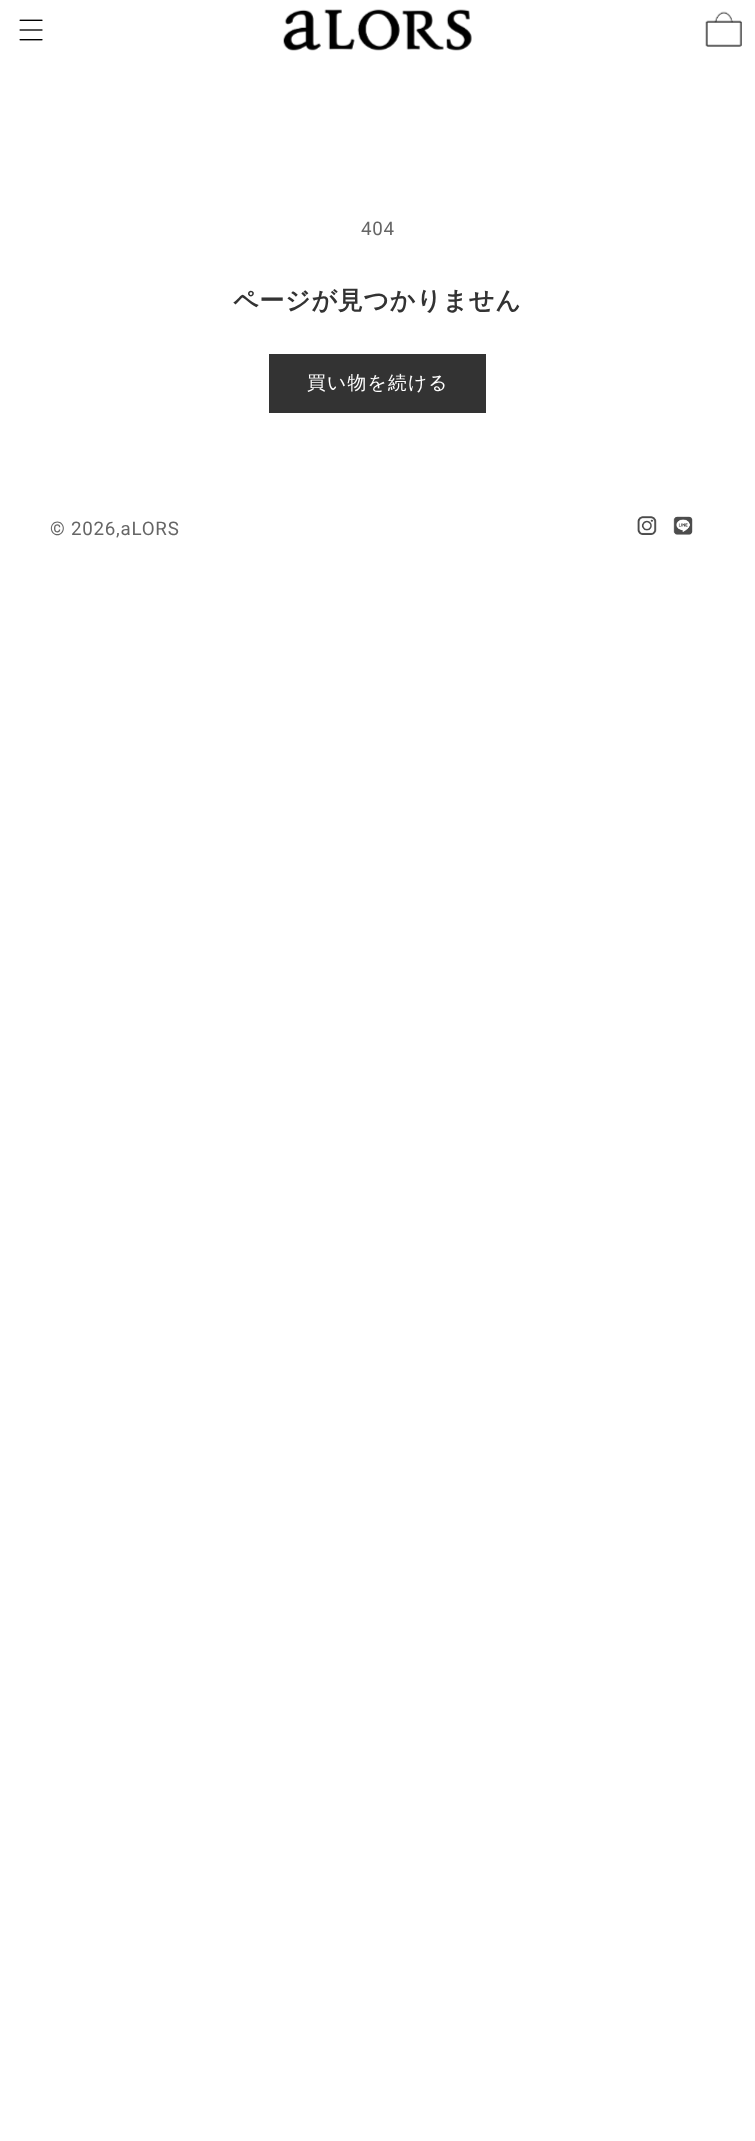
<!DOCTYPE html>
<meta charset="utf-8">
<style>body { margin: 0 } canvas { display: block }</style>
<canvas id="canvas" width="755" height="2141"></canvas>
<script type="module">
  const canvas = document.getElementById("canvas");
  const g = canvas.getContext("2d");
  g.miterLimit = 4;
  g.fontKerning = "normal";
  function drawText(s, x, y, [font, color]) {
    g.font = font;
    g.fillStyle = color;
    g.fillText(s, x, y);
  }
  function fillBox(x, y, w, h, color) {
    g.fillStyle = color;
    g.fillRect(x, y, w, h);
  }
  async function drawPicture(src, x, y, w, h) {
    const img = new Image();
    img.src = src;
    await img.decode();
    g.drawImage(img, x, y, w, h);
  }

  const s1 = ["18.75px Roboto", "#666666"];
  const s2 = ["bold 25px WenQuanYi Zen Hei", "#333333"];
  const s3 = ["500 18.75px WenQuanYi Zen Hei", "#FFFFFF"];

  fillBox(0, 0, 755, 2141, "#FFFFFF");
  await drawPicture("pic1.png", 19, 19, 24, 22);
  await drawPicture("pic2.png", 283, 9, 189, 42);
  await drawPicture("pic3.png", 705, 11, 37, 36);
  g.letterSpacing = "0.75px";
  drawText("404", 361, 235, s1);
  drawText("ページが見つかりません", 233, 309, s2);
  fillBox(269, 354, 217, 59, "#333333");
  g.letterSpacing = "1.25px";
  drawText("買い物を続ける", 307, 389, s3);
  g.letterSpacing = "0.75px";
  drawText("© 2026,aLORS", 50, 535, s1);
  await drawPicture("pic4.png", 637, 516, 20, 19);
  await drawPicture("pic5.png", 673, 516, 20, 19);
</script>
